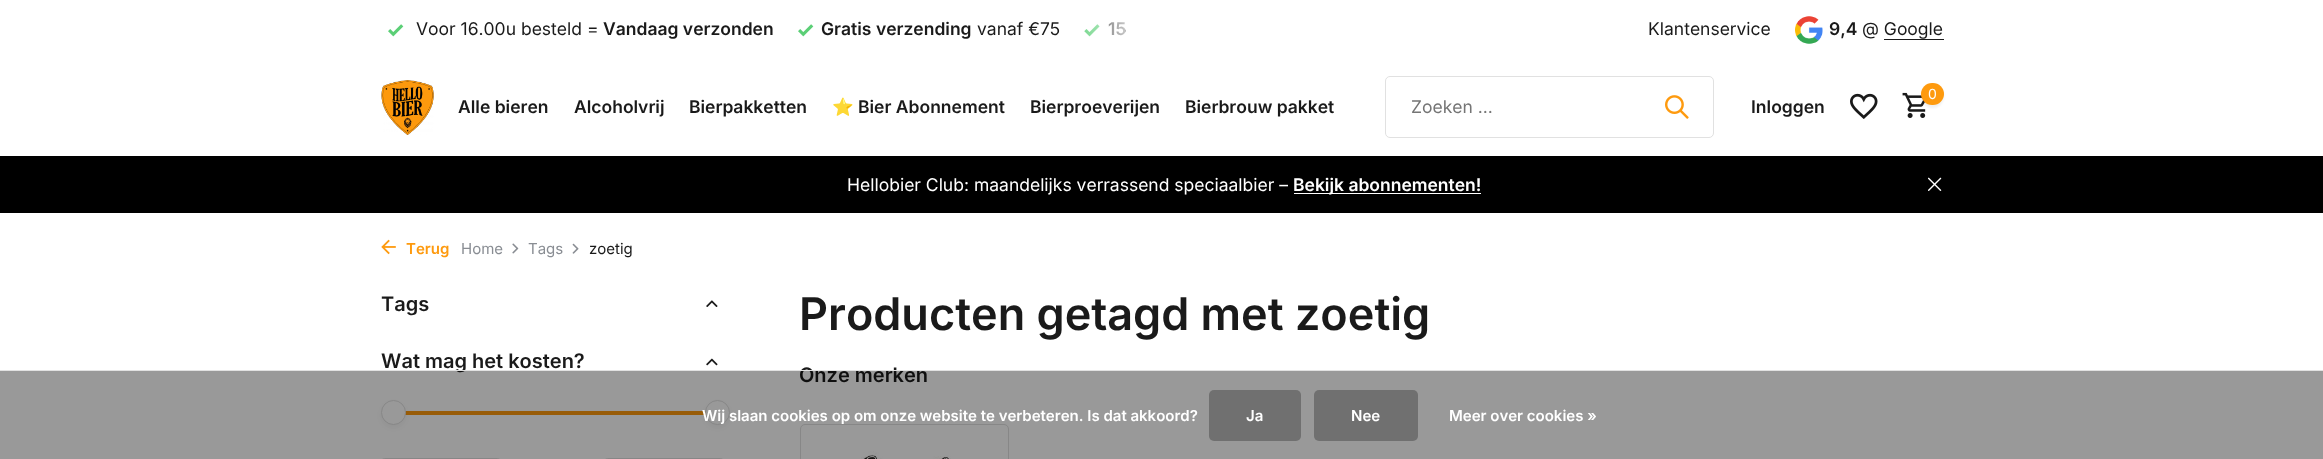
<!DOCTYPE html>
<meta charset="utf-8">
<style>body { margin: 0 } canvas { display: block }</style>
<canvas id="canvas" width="2323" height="459"></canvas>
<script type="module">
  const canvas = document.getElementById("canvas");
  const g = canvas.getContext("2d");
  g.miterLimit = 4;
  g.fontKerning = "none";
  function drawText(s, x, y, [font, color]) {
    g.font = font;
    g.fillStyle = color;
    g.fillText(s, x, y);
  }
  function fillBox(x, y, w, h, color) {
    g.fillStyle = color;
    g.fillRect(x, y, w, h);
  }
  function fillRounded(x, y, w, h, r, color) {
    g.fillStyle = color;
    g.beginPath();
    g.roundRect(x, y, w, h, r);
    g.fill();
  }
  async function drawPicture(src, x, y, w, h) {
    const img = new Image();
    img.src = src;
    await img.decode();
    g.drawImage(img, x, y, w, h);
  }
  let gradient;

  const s1 = ["17.5px Inter", "#1A1A1A"];
  const s2 = ["600 17.5px Inter", "#1A1A1A"];
  const s3 = ["bold 17.5px Noto Color Emoji", "#1A1A1A"];
  const s4 = ["17.5px Inter", "#757575"];
  const s5 = ["14px Inter", "#FFFFFF"];
  const s6 = ["17.5px Inter", "#FFFFFF"];
  const s7 = ["600 17.5px Inter", "#FFFFFF"];
  const s8 = ["600 15px Inter", "#FE9A0E"];
  const s9 = ["15px Inter", "#898D93"];
  const s10 = ["15px Inter", "#1A1A1A"];
  const s11 = ["600 20px Inter", "#1A1A1A"];
  const s12 = ["600 45px Inter", "#1A1A1A"];
  const s13 = ["600 15px Inter", "#FFFFFF"];

  fillBox(0, 0, 2323, 459, "#FFFFFF");
  await drawPicture("pic1.png", 388, 24, 16, 13);
  drawText("Voor 16.00u besteld =", 416, 35, s1);
  drawText("Vandaag verzonden", 603, 35, s2);
  await drawPicture("pic1.png", 798, 24, 16, 13);
  drawText("Gratis verzending", 821, 35, s2);
  drawText("vanaf €75", 977, 35, s1);
  await drawPicture("pic2.png", 1084, 24, 16, 13);
  drawText("15", 1108, 35, s2);
  gradient = g.createLinearGradient(1144, 28, 1068, 28);
  gradient.addColorStop(0, "#FFFFFF");
  gradient.addColorStop(1, "rgba(255, 255, 255, 0)");
  g.fillStyle = gradient;
  g.fillRect(1084, 22, 41, 15);
  drawText("Klantenservice", 1648, 35, s1);
  await drawPicture("pic3.png", 1795, 16, 28, 28);
  drawText("9,4", 1829, 35, s2);
  drawText("@ Google", 1862, 35, s1);
  fillBox(1884, 39, 60, 1, "#1A1A1A");
  await drawPicture("pic4.png", 381, 80, 53, 55);
  drawText("Alle bieren", 458, 113, s2);
  drawText("Alcoholvrij", 574, 113, s2);
  drawText("Bierpakketten", 689, 113, s2);
  drawText("⭐", 832, 113, s3);
  drawText("Bier Abonnement", 858, 113, s2);
  drawText("Bierproeverijen", 1030, 113, s2);
  drawText("Bierbrouw pakket", 1185, 113, s2);
  g.beginPath();
  g.roundRect(1385.5, 76.5, 328, 61, 4.5);
  g.strokeStyle = "#E1E1E1";
  g.stroke();
  drawText("Zoeken ...", 1411, 113, s4);
  await drawPicture("pic5.png", 1665, 95, 24, 24);
  drawText("Inloggen", 1751, 113, s2);
  await drawPicture("pic6.png", 1850, 93, 28, 26);
  await drawPicture("pic7.png", 1902, 92, 24, 26);
  g.fillStyle = "rgba(0, 0, 0, 0.06)";
  g.filter = "blur(1px)";
  g.beginPath();
  g.roundRect(1921, 85, 23, 23, 11.5);
  g.fill();
  g.filter = "none";
  fillRounded(1921, 83, 23, 22, 11, "#FE9A0E");
  drawText("0", 1928, 99, s5);
  fillBox(0, 156, 2323, 57, "#000000");
  drawText("Hellobier Club: maandelijks verrassend speciaalbier –", 847, 191, s6);
  fillBox(1294, 193, 187, 1, "#FFFFFF");
  drawText("Bekijk abonnementen!", 1293, 191, s7);
  await drawPicture("pic8.png", 1928, 177, 14, 14);
  await drawPicture("pic9.png", 381, 239, 15, 16);
  drawText("Terug", 406, 254, s8);
  drawText("Home", 461, 254, s9);
  await drawPicture("pic10.png", 512, 243, 7, 11);
  drawText("Tags", 528, 254, s9);
  await drawPicture("pic11.png", 572, 243, 7, 11);
  drawText("zoetig", 589, 254, s10);
  drawText("Tags", 381, 311, s11);
  await drawPicture("pic12.png", 706, 300, 12, 7);
  drawText("Wat mag het kosten?", 381, 368, s11);
  await drawPicture("pic13.png", 706, 358, 12, 8);
  fillBox(405, 411, 301, 4, "#FE9A0E");
  g.fillStyle = "rgba(0, 0, 0, 0.04)";
  g.filter = "blur(2.5px)";
  g.beginPath();
  g.roundRect(381, 403, 25, 25, 12.5);
  g.fill();
  g.filter = "none";
  g.fillStyle = "#FFFFFF";
  g.beginPath();
  g.arc(393.5, 412.5, 12, 0, Math.PI * 2);
  g.fill();
  g.stroke();
  g.fillStyle = "rgba(0, 0, 0, 0.04)";
  g.filter = "blur(2.5px)";
  g.beginPath();
  g.roundRect(705, 403, 25, 25, 12.5);
  g.fill();
  g.filter = "none";
  g.fillStyle = "#FFFFFF";
  g.beginPath();
  g.arc(717.5, 412.5, 12, 0, Math.PI * 2);
  g.fill();
  g.stroke();
  g.beginPath();
  g.roundRect(381.5, 458.5, 119, 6, 4.5);
  g.stroke();
  g.beginPath();
  g.roundRect(604.5, 458.5, 119, 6, 4.5);
  g.stroke();
  drawText("Producten getagd met zoetig", 799, 330, s12);
  drawText("Onze merken", 799, 382, s11);
  g.beginPath();
  g.roundRect(800.5, 424.5, 208, 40, 4.5);
  g.stroke();
  await drawPicture("pic14.png", 861, 451, 90, 8);
  fillBox(0, 371, 2323, 88, "rgba(0, 0, 0, 0.4)");
  fillBox(0, 370, 2323, 1, "#E1E1E1");
  drawText("Wij slaan cookies op om onze website te verbeteren. Is dat akkoord?", 702, 421, s13);
  fillRounded(1209, 390, 92, 51, 5, "#707070");
  drawText("Ja", 1246, 421, s13);
  fillRounded(1314, 390, 104, 51, 5, "#707070");
  drawText("Nee", 1351, 421, s13);
  drawText("Meer over cookies »", 1449, 421, s13);
</script>
